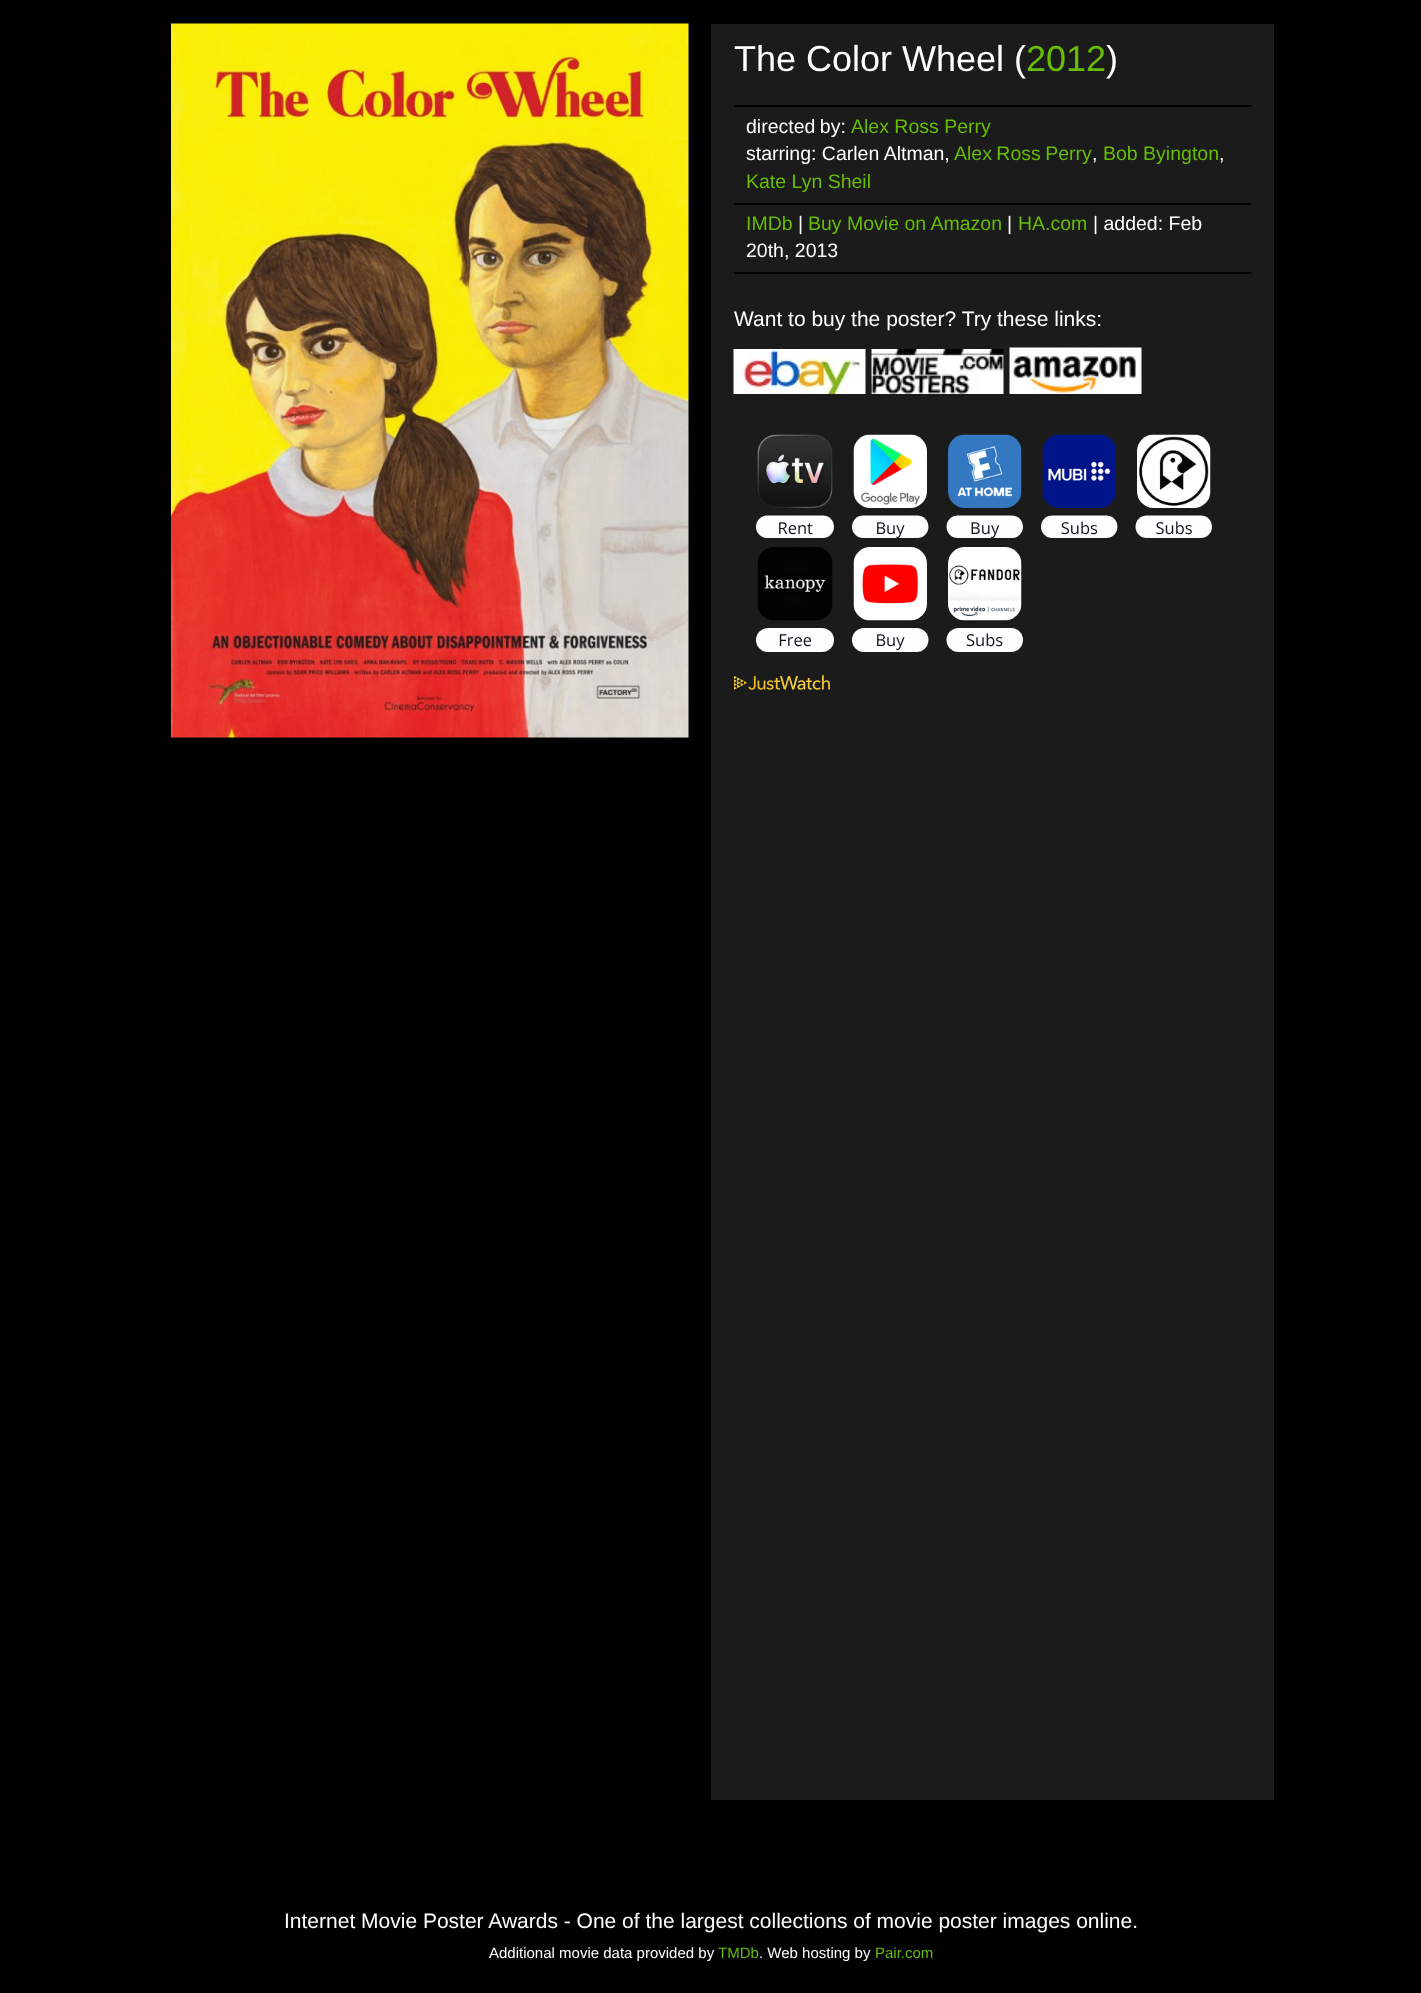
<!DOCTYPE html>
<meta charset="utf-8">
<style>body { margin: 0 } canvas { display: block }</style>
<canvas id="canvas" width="1421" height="1993"></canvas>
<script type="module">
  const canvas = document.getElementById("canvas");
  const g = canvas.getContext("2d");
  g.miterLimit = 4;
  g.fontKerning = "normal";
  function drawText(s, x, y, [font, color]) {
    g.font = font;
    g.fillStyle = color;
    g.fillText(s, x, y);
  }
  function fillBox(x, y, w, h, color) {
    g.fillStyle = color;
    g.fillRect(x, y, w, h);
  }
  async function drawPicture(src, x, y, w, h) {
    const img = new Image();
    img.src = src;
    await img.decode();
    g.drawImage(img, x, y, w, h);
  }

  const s1 = ["36px Liberation Sans", "#FFFFFF"];
  const s2 = ["36px Liberation Sans", "#66BD04"];
  const s3 = ["19.5px Liberation Sans", "#FFFFFF"];
  const s4 = ["19.5px Liberation Sans", "#66BD04"];
  const s5 = ["21px Liberation Sans", "#FFFFFF"];
  const s6 = ["15px Liberation Sans", "#FFFFFF"];
  const s7 = ["15px Liberation Sans", "#66BD04"];

  fillBox(0, 0, 1421, 1993, "#000000");
  await drawPicture("pic1.png", 171, 23, 518, 715);
  fillBox(711, 24, 563, 1776, "#1B1B1B");
  drawText("The Color Wheel (", 734, 71, s1);
  drawText("2012", 1026, 71, s2);
  drawText(")", 1106, 71, s1);
  fillBox(734, 105, 517, 2, "#000000");
  fillBox(734, 203, 517, 2, "#000000");
  g.wordSpacing = "-1px";
  drawText("directed by:", 746, 133, s3);
  g.wordSpacing = "0px";
  drawText("Alex Ross Perry", 851, 133, s4);
  drawText("starring: Carlen Altman,", 746, 160, s3);
  g.wordSpacing = "-1px";
  drawText("Alex Ross Perry", 954, 160, s4);
  g.wordSpacing = "0px";
  drawText(",", 1092, 160, s3);
  drawText("Bob Byington", 1103, 160, s4);
  drawText(",", 1219, 160, s3);
  drawText("Kate Lyn Sheil", 746, 188, s4);
  fillBox(734, 272, 517, 2, "#000000");
  drawText("IMDb", 746, 230, s4);
  drawText("|", 798, 230, s3);
  drawText("Buy Movie on Amazon", 808, 230, s4);
  drawText("|", 1007, 230, s3);
  drawText("HA.com", 1018, 230, s4);
  drawText("| added: Feb", 1093, 230, s3);
  drawText("20th, 2013", 746, 257, s3);
  drawText("Want to buy the poster? Try these links:", 734, 326, s5);
  await drawPicture("pic2.png", 733, 349, 133, 45);
  await drawPicture("pic3.png", 871, 349, 133, 45);
  await drawPicture("pic4.png", 1009, 347, 133, 47);
  await drawPicture("pic5.png", 756, 434, 456, 218);
  await drawPicture("pic6.png", 734, 675, 96, 15);
  drawText("Internet Movie Poster Awards - One of the largest collections of movie poster images online.", 284, 1928, s5);
  drawText("Additional movie data provided by", 489, 1958, s6);
  drawText("TMDb", 718, 1958, s7);
  drawText(". Web hosting by", 759, 1958, s6);
  drawText("Pair.com", 875, 1958, s7);
</script>
